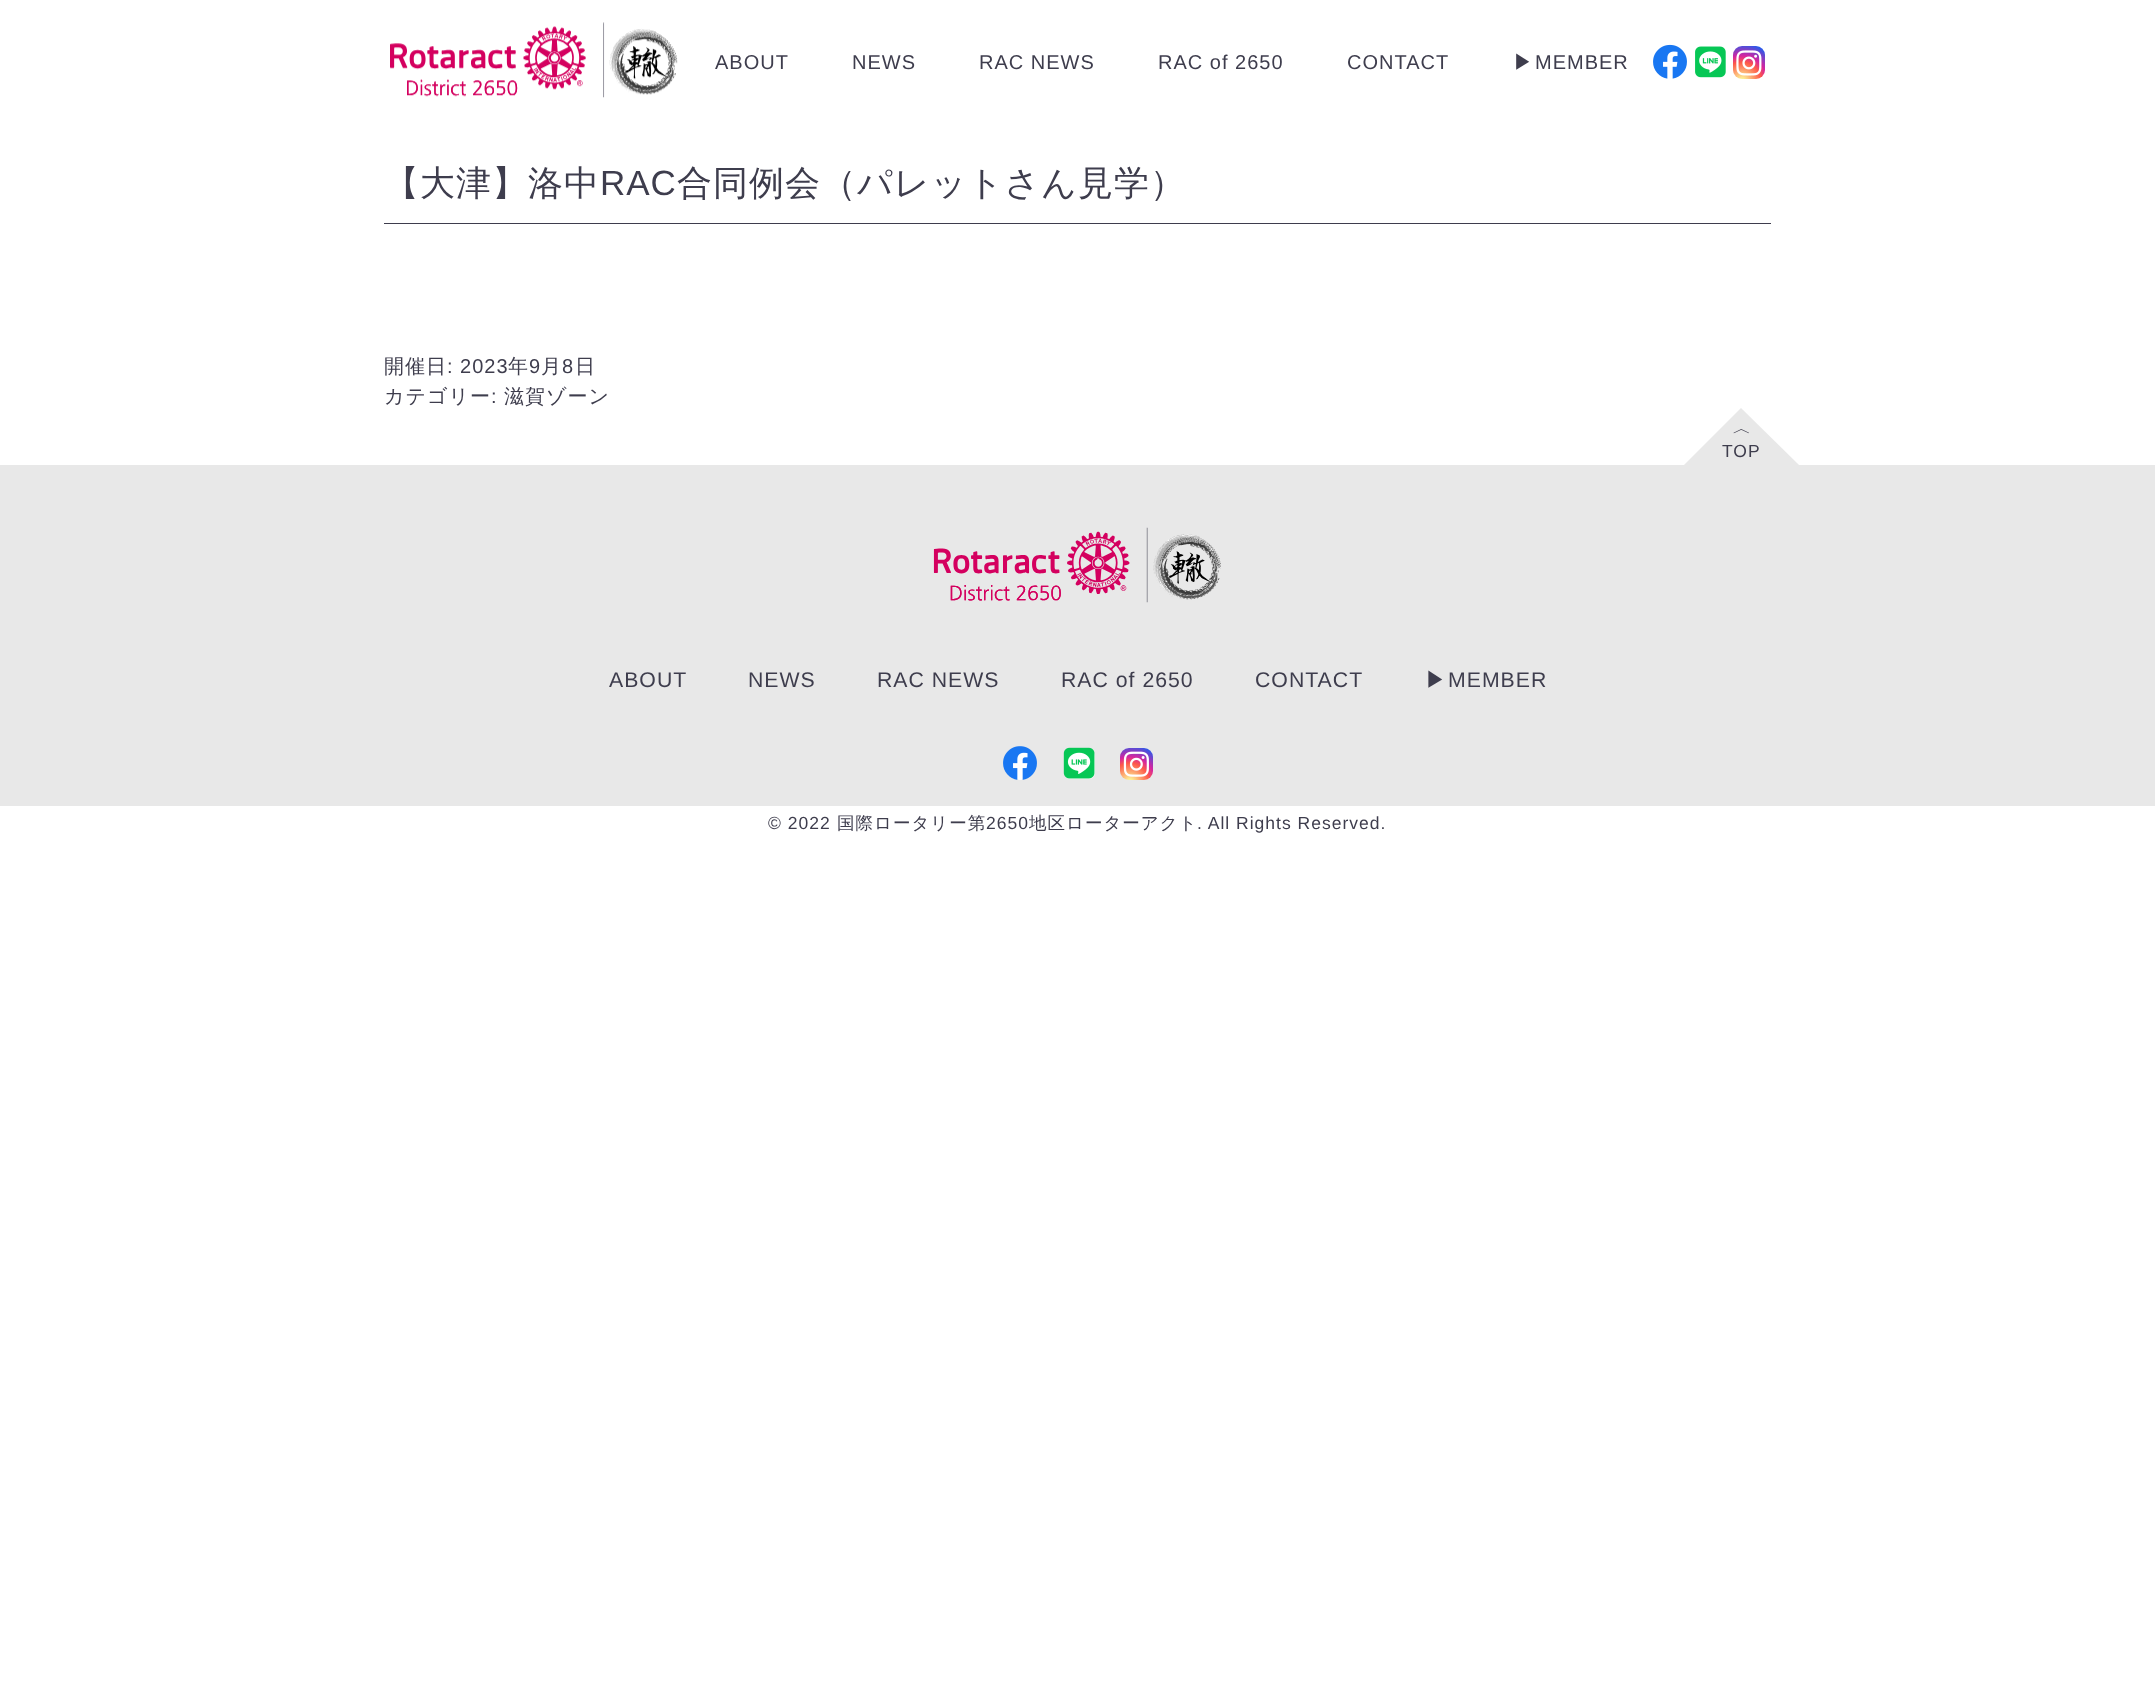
<!DOCTYPE html>
<meta charset="utf-8">
<style>body { margin: 0 } canvas { display: block }</style>
<canvas id="canvas" width="2155" height="1687"></canvas>
<script type="module">
  const canvas = document.getElementById("canvas");
  const g = canvas.getContext("2d");
  g.miterLimit = 4;
  g.fontKerning = "normal";
  function drawText(s, x, y, [font, color]) {
    g.font = font;
    g.fillStyle = color;
    g.fillText(s, x, y);
  }
  function fillBox(x, y, w, h, color) {
    g.fillStyle = color;
    g.fillRect(x, y, w, h);
  }
  function fillRounded(x, y, w, h, r, color) {
    g.fillStyle = color;
    g.beginPath();
    g.roundRect(x, y, w, h, r);
    g.fill();
  }
  async function drawPicture(src, x, y, w, h) {
    const img = new Image();
    img.src = src;
    await img.decode();
    g.drawImage(img, x, y, w, h);
  }
  let gradient;

  const s1 = ["20px Liberation Sans", "#3E3D4D"];
  const s2 = ["500 20px WenQuanYi Zen Hei", "#3E3D4D"];
  const s3 = ["500 35px WenQuanYi Zen Hei", "#3E3D4D"];
  const s4 = ["35px Liberation Sans", "#3E3D4D"];
  const s5 = ["17.5px Liberation Sans", "#3E3D4D"];
  const s6 = ["21.25px Liberation Sans", "#3E3D4D"];
  const s7 = ["500 21.25px WenQuanYi Zen Hei", "#3E3D4D"];
  const s8 = ["500 17.5px WenQuanYi Zen Hei", "#3E3D4D"];

  fillBox(0, 0, 2155, 1687, "#FFFFFF");
  await drawPicture("pic1.png", 390, 22, 288, 76);
  g.letterSpacing = "1px";
  drawText("ABOUT", 715, 69, s1);
  drawText("NEWS", 852, 69, s1);
  drawText("RAC NEWS", 979, 69, s1);
  drawText("RAC of 2650", 1158, 69, s1);
  drawText("CONTACT", 1347, 69, s1);
  drawText("▶︎", 1513, 69, s2);
  drawText("MEMBER", 1535, 69, s1);
  await drawPicture("pic2.png", 1653, 44, 34, 35);
  await drawPicture("pic3.png", 1695, 46, 31, 32);
  gradient = g.createRadialGradient(1742, 81, 0, 1742, 81, 42);
  gradient.addColorStop(0, "#FDF497");
  gradient.addColorStop(0.05, "#FDF497");
  gradient.addColorStop(0.45, "#FD5949");
  gradient.addColorStop(0.6, "#D6249F");
  gradient.addColorStop(0.9, "#285AEB");
  g.fillStyle = gradient;
  g.beginPath();
  g.roundRect(1733, 46, 32, 33, 9);
  g.fill();
  await drawPicture("pic4.png", 1736, 50, 26, 26);
  fillBox(384, 223, 1387, 1, "#3E3D4D");
  drawText("【大津】洛中", 384, 195, s3);
  drawText("RAC", 600, 195, s4);
  drawText("合同例会（パレットさん見学）", 677, 195, s3);
  drawText("開催日", 384, 373, s2);
  drawText(": 2023", 447, 373, s1);
  drawText("年", 508, 373, s2);
  drawText("9", 529, 373, s1);
  drawText("月", 541, 373, s2);
  drawText("8", 562, 373, s1);
  drawText("日", 575, 373, s2);
  drawText("カテゴリー", 384, 403, s2);
  drawText(":", 491, 403, s1);
  drawText("滋賀ゾーン", 504, 403, s2);
  fillBox(0, 465, 2155, 341, "#E8E8E8");
  g.beginPath();
  g.moveTo(1799, 465);
  g.lineTo(1684, 465);
  g.lineTo(1741, 408);
  g.closePath();
  g.fill();
  g.font = "500 17.5px WenQuanYi Zen Hei";
  g.fillStyle = "#3E3D4D";
  g.save();
  g.translate(1735, 418);
  g.rotate(90 * Math.PI / 180);
  g.fillText("〈", 0, 0);
  g.restore();
  drawText("TOP", 1722, 457, s5);
  await drawPicture("pic5.png", 933, 527, 288, 76);
  drawText("ABOUT", 609, 687, s6);
  drawText("NEWS", 748, 687, s6);
  drawText("RAC NEWS", 877, 687, s6);
  drawText("RAC of 2650", 1061, 687, s6);
  drawText("CONTACT", 1255, 687, s6);
  drawText("▶︎", 1425, 687, s7);
  drawText("MEMBER", 1448, 687, s6);
  g.fillStyle = "#FFFFFF";
  g.beginPath();
  g.ellipse(1020, 765, 12.5, 15, 0, 0, Math.PI * 2);
  g.fill();
  await drawPicture("pic6.png", 1003, 746, 34, 34);
  fillRounded(1064, 750, 31, 29, 6, "#FFFFFF");
  await drawPicture("pic7.png", 1063, 747, 32, 32);
  gradient = g.createRadialGradient(1130, 782, 0, 1130, 782, 42);
  gradient.addColorStop(0, "#FDF497");
  gradient.addColorStop(0.05, "#FDF497");
  gradient.addColorStop(0.45, "#FD5949");
  gradient.addColorStop(0.6, "#D6249F");
  gradient.addColorStop(0.9, "#285AEB");
  g.fillStyle = gradient;
  g.beginPath();
  g.roundRect(1120, 748, 33, 32, 9);
  g.fill();
  await drawPicture("pic8.png", 1123, 751, 26, 26);
  drawText("© 2022", 768, 829, s5);
  drawText("国際ロータリー第", 837, 829, s8);
  drawText("2650", 986, 829, s5);
  drawText("地区ローターアクト", 1029, 829, s8);
  drawText(". All Rights Reserved.", 1197, 829, s5);
</script>
